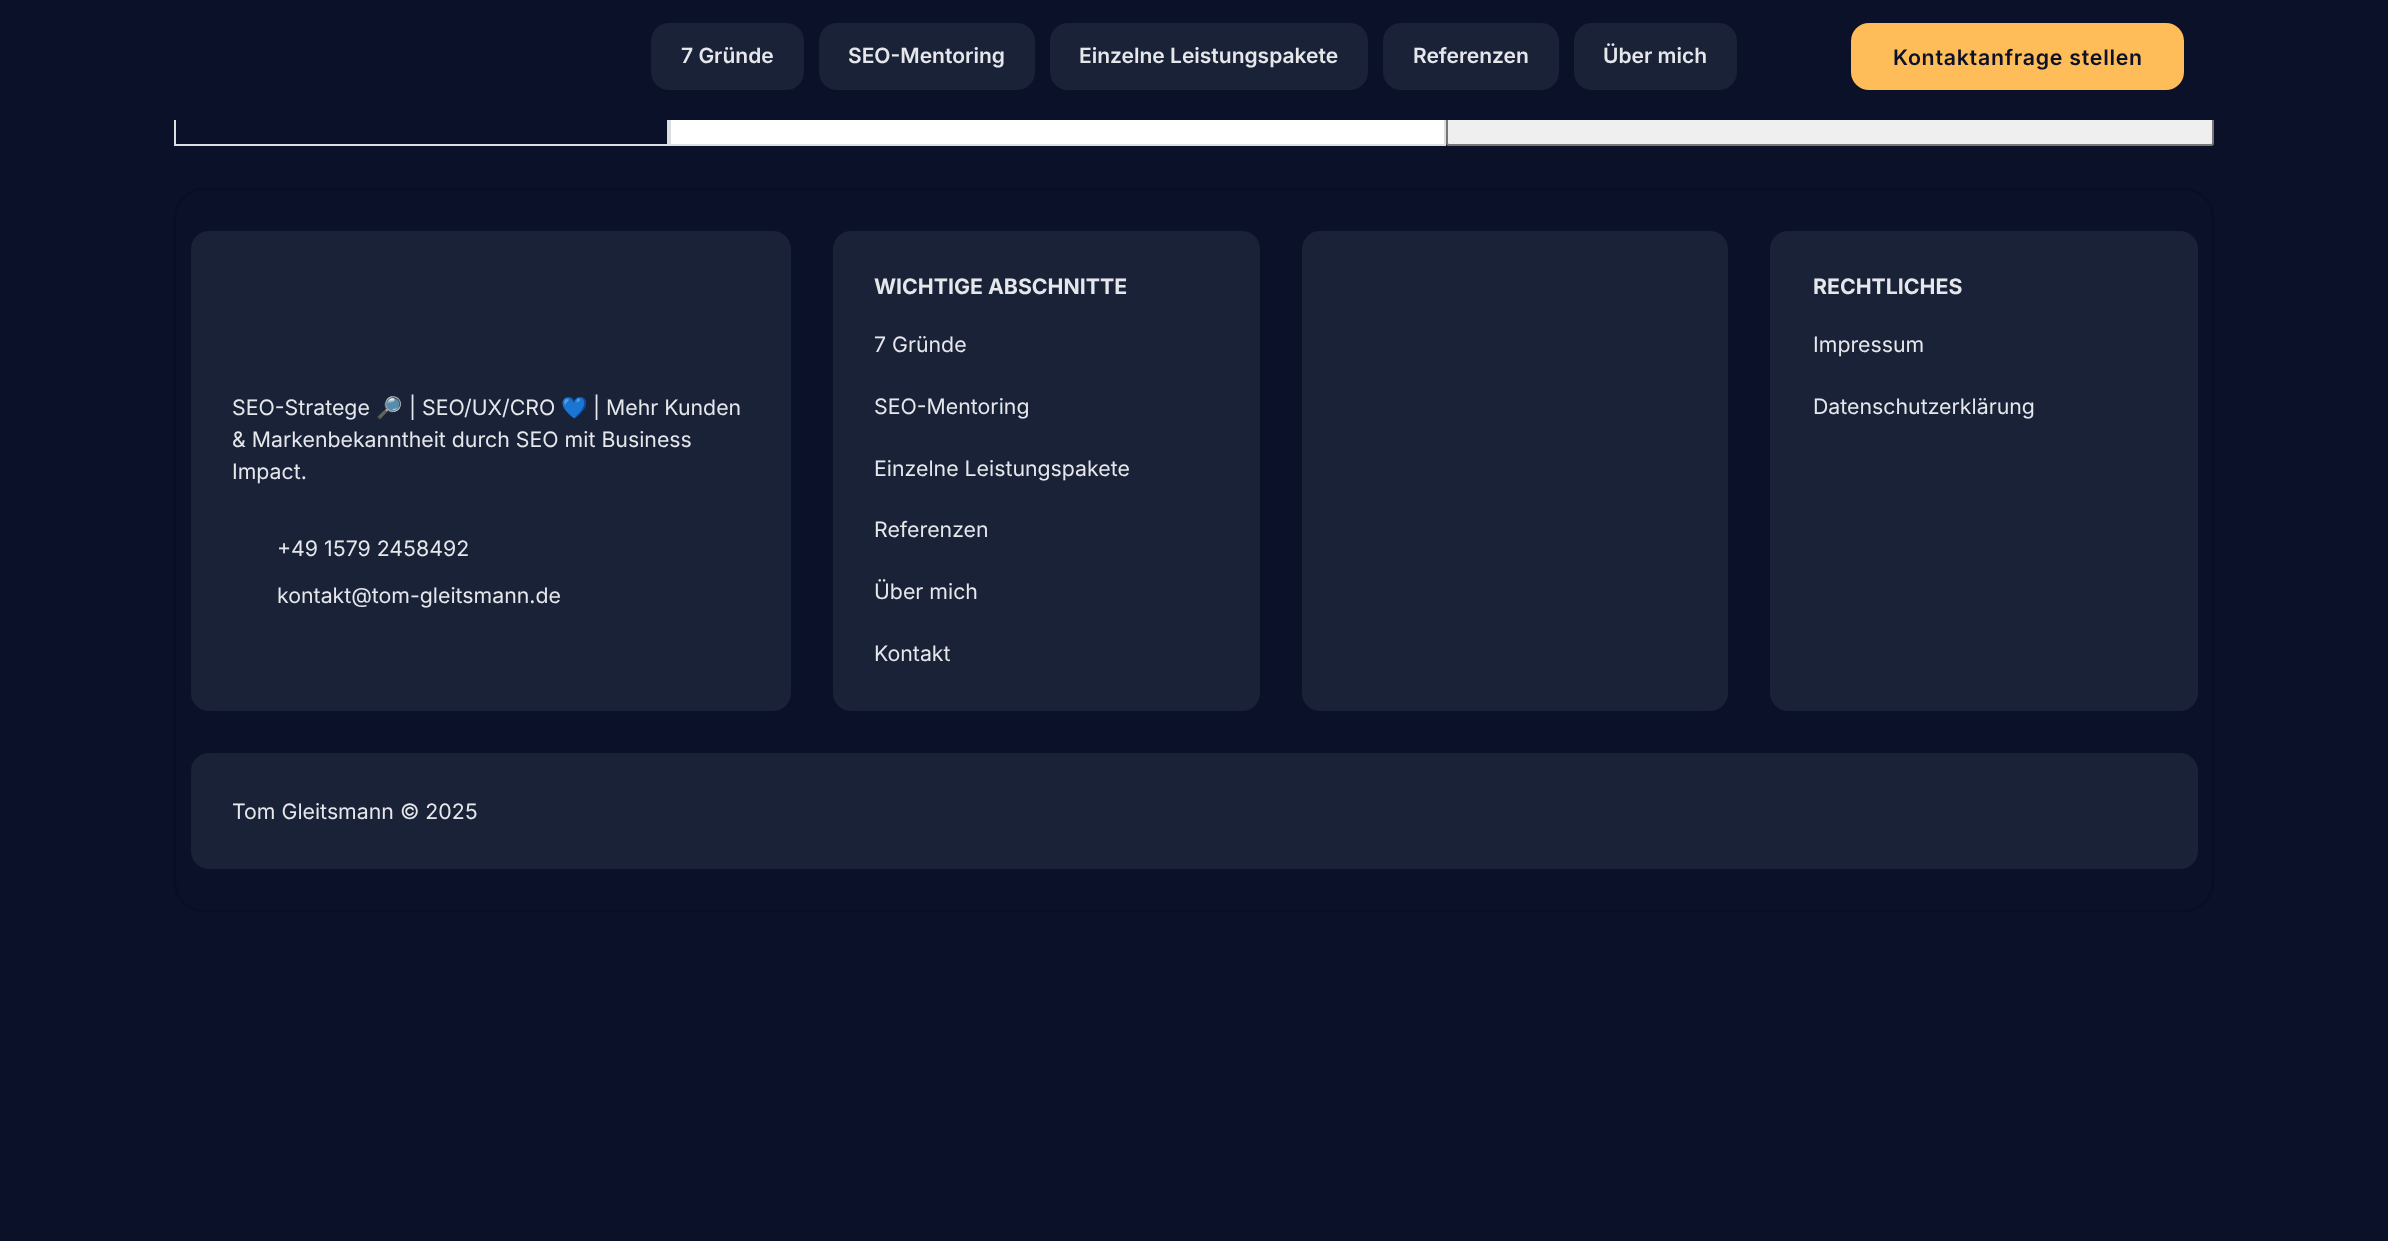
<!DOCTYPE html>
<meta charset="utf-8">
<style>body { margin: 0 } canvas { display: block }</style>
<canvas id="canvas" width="2388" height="1241"></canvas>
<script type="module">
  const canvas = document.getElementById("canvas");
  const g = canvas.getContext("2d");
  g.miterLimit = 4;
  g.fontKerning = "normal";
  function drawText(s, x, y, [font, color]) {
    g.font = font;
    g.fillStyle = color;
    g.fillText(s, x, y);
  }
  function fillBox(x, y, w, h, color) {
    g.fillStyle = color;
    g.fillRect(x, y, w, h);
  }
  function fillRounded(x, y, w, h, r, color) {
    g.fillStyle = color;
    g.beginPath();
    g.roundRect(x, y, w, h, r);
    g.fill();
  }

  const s1 = ["600 21px Inter", "#E5E7EB"];
  const s2 = ["600 21.3px Inter", "#0A1128"];
  const s3 = ["21.3px Inter", "#E5E7EB"];
  const s4 = ["21.3px Noto Color Emoji", "#E5E7EB"];
  const s5 = ["bold 21.3px Inter", "#E5E7EB"];

  fillBox(0, 0, 2388, 1241, "#0A1128");
  g.strokeStyle = "#DDDEDF";
  g.lineWidth = 2;
  g.strokeRect(175, 78, 493, 67);
  fillBox(671, 120, 773, 24, "#FFFFFF");
  g.strokeRect(670, 78, 775, 67);
  g.fillStyle = "#EFEFEF";
  g.beginPath();
  g.roundRect(1447, 78, 766, 67, 2);
  g.fill();
  g.strokeStyle = "#767676";
  g.stroke();
  fillBox(174, 77, 2040, 43, "#0A1128");
  fillRounded(651, 23, 153, 67, 18, "#1A2238");
  drawText("7 Gründe", 681, 63, s1);
  fillRounded(819, 23, 216, 67, 18, "#1A2238");
  drawText("SEO-Mentoring", 848, 63, s1);
  fillRounded(1050, 23, 318, 67, 18, "#1A2238");
  drawText("Einzelne Leistungspakete", 1079, 63, s1);
  fillRounded(1383, 23, 176, 67, 18, "#1A2238");
  drawText("Referenzen", 1413, 63, s1);
  fillRounded(1574, 23, 163, 67, 18, "#1A2238");
  drawText("Über mich", 1603, 63, s1);
  fillRounded(1851, 23, 333, 67, 18, "#FFBD59");
  g.letterSpacing = "0.75px";
  drawText("Kontaktanfrage stellen", 1893, 65, s2);
  g.beginPath();
  g.roundRect(175, 189, 2038, 722, 29);
  g.strokeStyle = "#090E22";
  g.stroke();
  fillRounded(191, 231, 600, 480, 18, "#1A2238");
  g.letterSpacing = "0px";
  drawText("SEO-Stratege", 232, 415, s3);
  drawText("🔎", 376, 415, s4);
  drawText("| SEO/UX/CRO", 409, 415, s3);
  drawText("💙", 561, 415, s4);
  drawText("| Mehr Kunden", 593, 415, s3);
  drawText("& Markenbekanntheit durch SEO mit Business", 232, 447, s3);
  drawText("Impact.", 232, 479, s3);
  drawText("+49 1579 2458492", 277, 556, s3);
  drawText("kontakt@tom-gleitsmann.de", 277, 603, s3);
  fillRounded(833, 231, 427, 480, 18, "#1A2238");
  drawText("WICHTIGE ABSCHNITTE", 874, 294, s5);
  drawText("7 Gründe", 874, 352, s3);
  drawText("SEO-Mentoring", 874, 414, s3);
  drawText("Einzelne Leistungspakete", 874, 476, s3);
  drawText("Referenzen", 874, 537, s3);
  drawText("Über mich", 874, 599, s3);
  drawText("Kontakt", 874, 661, s3);
  fillRounded(1302, 231, 426, 480, 18, "#1A2238");
  fillRounded(1770, 231, 428, 480, 18, "#1A2238");
  drawText("RECHTLICHES", 1813, 294, s5);
  drawText("Impressum", 1813, 352, s3);
  drawText("Datenschutzerklärung", 1813, 414, s3);
  fillRounded(191, 753, 2007, 116, 18, "#1A2238");
  drawText("Tom Gleitsmann © 2025", 232, 819, s3);
</script>
